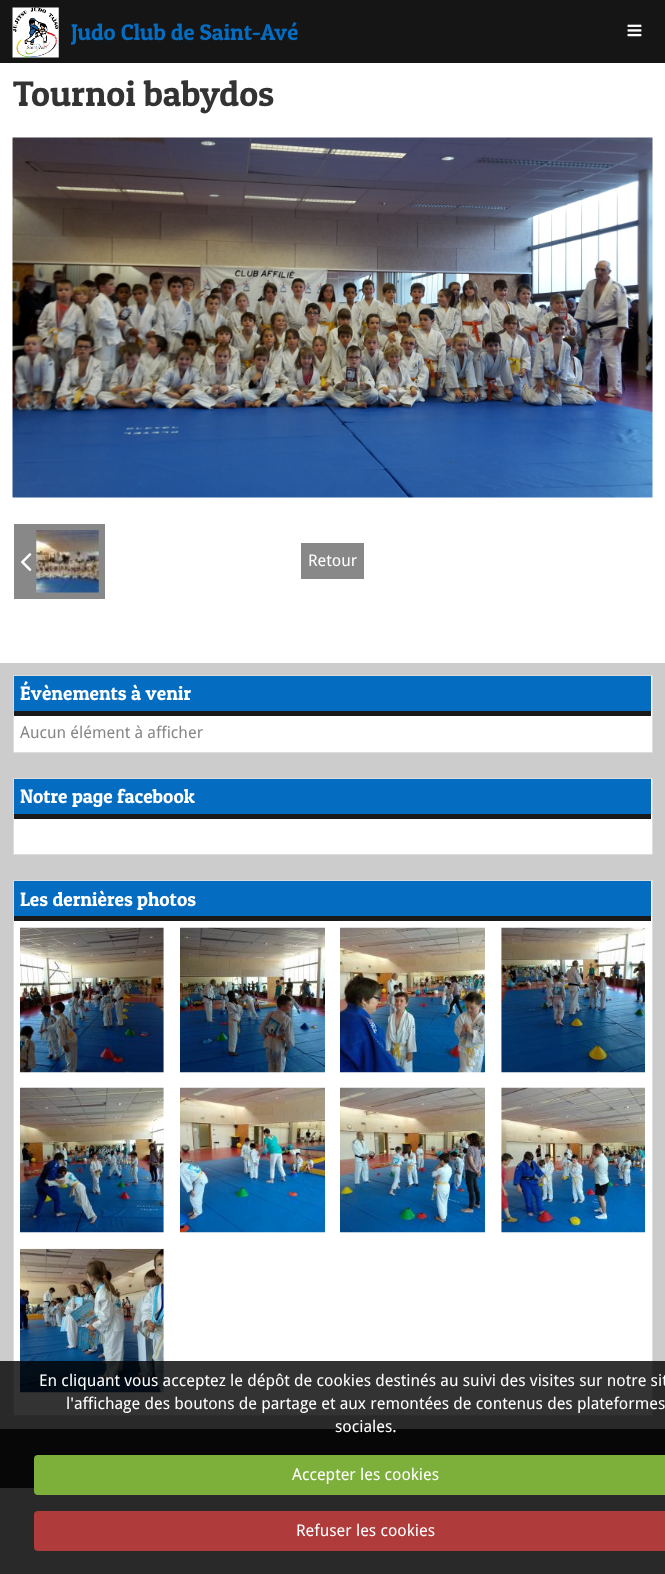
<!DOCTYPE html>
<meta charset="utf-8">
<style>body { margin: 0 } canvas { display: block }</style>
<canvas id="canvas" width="665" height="1574"></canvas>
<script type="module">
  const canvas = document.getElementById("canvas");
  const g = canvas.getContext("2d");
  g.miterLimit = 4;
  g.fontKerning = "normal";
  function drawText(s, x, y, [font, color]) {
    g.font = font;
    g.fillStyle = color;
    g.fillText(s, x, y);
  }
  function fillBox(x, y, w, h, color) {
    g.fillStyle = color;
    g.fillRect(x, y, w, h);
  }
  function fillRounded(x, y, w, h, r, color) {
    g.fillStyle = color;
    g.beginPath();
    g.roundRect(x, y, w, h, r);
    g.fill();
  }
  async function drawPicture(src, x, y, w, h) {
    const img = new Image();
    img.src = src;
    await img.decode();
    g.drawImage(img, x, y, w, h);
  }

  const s1 = ["22.75px Patua One", "#046CC1"];
  const s2 = ["35.75px Patua One", "#333333"];
  const s3 = ["16.25px Droid Sans", "#FFFFFF"];
  const s4 = ["19.5px Patua One", "#FFFFFF"];
  const s5 = ["16.25px Droid Sans", "#888888"];

  fillBox(0, 0, 665, 1574, "#CDCCCC");
  fillBox(0, 0, 665, 63, "#151515");
  await drawPicture("pic1.png", 12, 7, 47, 51);
  g.save();
  g.beginPath();
  g.rect(71, 0, 228, 63);
  g.clip();
  drawText("Judo Club de Saint-Avé", 71, 40, s1);
  g.restore();
  await drawPicture("pic2.png", 627, 24, 15, 13);
  fillBox(0, 63, 665, 600, "#FFFFFF");
  drawText("Tournoi babydos", 13, 106, s2);
  await drawPicture("pic3.png", 12, 137, 641, 361);
  fillBox(14, 524, 91, 75, "#888888");
  await drawPicture("pic4.png", 20, 553, 12, 18);
  await drawPicture("pic5.png", 36, 530, 63, 63);
  fillBox(301, 543, 63, 36, "#888888");
  drawText("Retour", 308, 566, s3);
  g.beginPath();
  g.rect(13.5, 675.5, 639, 77);
  g.fill();
  g.strokeStyle = "#DDDDDD";
  g.stroke();
  fillBox(14, 676, 637, 35, "#046CC1");
  fillBox(14, 711, 637, 5, "#1A1A1A");
  drawText("Évènements à venir", 20, 700, s4);
  drawText("Aucun élément à afficher", 20, 738, s5);
  g.fillStyle = "#FFFFFF";
  g.beginPath();
  g.rect(13.5, 778.5, 639, 76);
  g.fill();
  g.stroke();
  fillBox(14, 779, 637, 35, "#046CC1");
  fillBox(14, 814, 637, 5, "#1A1A1A");
  drawText("Notre page facebook", 20, 803, s4);
  g.beginPath();
  g.rect(13.5, 880.5, 639, 535);
  g.fill();
  g.stroke();
  fillBox(14, 881, 637, 35, "#046CC1");
  fillBox(14, 916, 637, 5, "#1A1A1A");
  drawText("Les dernières photos", 20, 906, s4);
  await drawPicture("pic6.png", 20, 927, 144, 146);
  await drawPicture("pic7.png", 180, 927, 145, 146);
  await drawPicture("pic8.png", 340, 927, 145, 146);
  await drawPicture("pic9.png", 501, 927, 144, 146);
  await drawPicture("pic10.png", 20, 1087, 144, 146);
  await drawPicture("pic11.png", 180, 1087, 145, 146);
  await drawPicture("pic12.png", 340, 1087, 145, 146);
  await drawPicture("pic13.png", 501, 1087, 144, 146);
  await drawPicture("pic14.png", 20, 1248, 144, 145);
  fillBox(0, 1429, 665, 59, "#232323");
  fillBox(0, 1361, 665, 213, "rgba(0, 0, 0, 0.8)");
  drawText("En cliquant vous acceptez le dépôt de cookies destinés au suivi des visites sur notre sit", 39, 1386, s3);
  drawText("l'affichage des boutons de partage et aux remontées de contenus des plateformes", 66, 1409, s3);
  drawText("sociales.", 335, 1432, s3);
  fillRounded(34, 1455, 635, 40, 4, "#7DAF3B");
  drawText("Accepter les cookies", 292, 1480, s3);
  fillRounded(34, 1511, 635, 40, 4, "#AF3B3B");
  drawText("Refuser les cookies", 296, 1536, s3);
</script>
